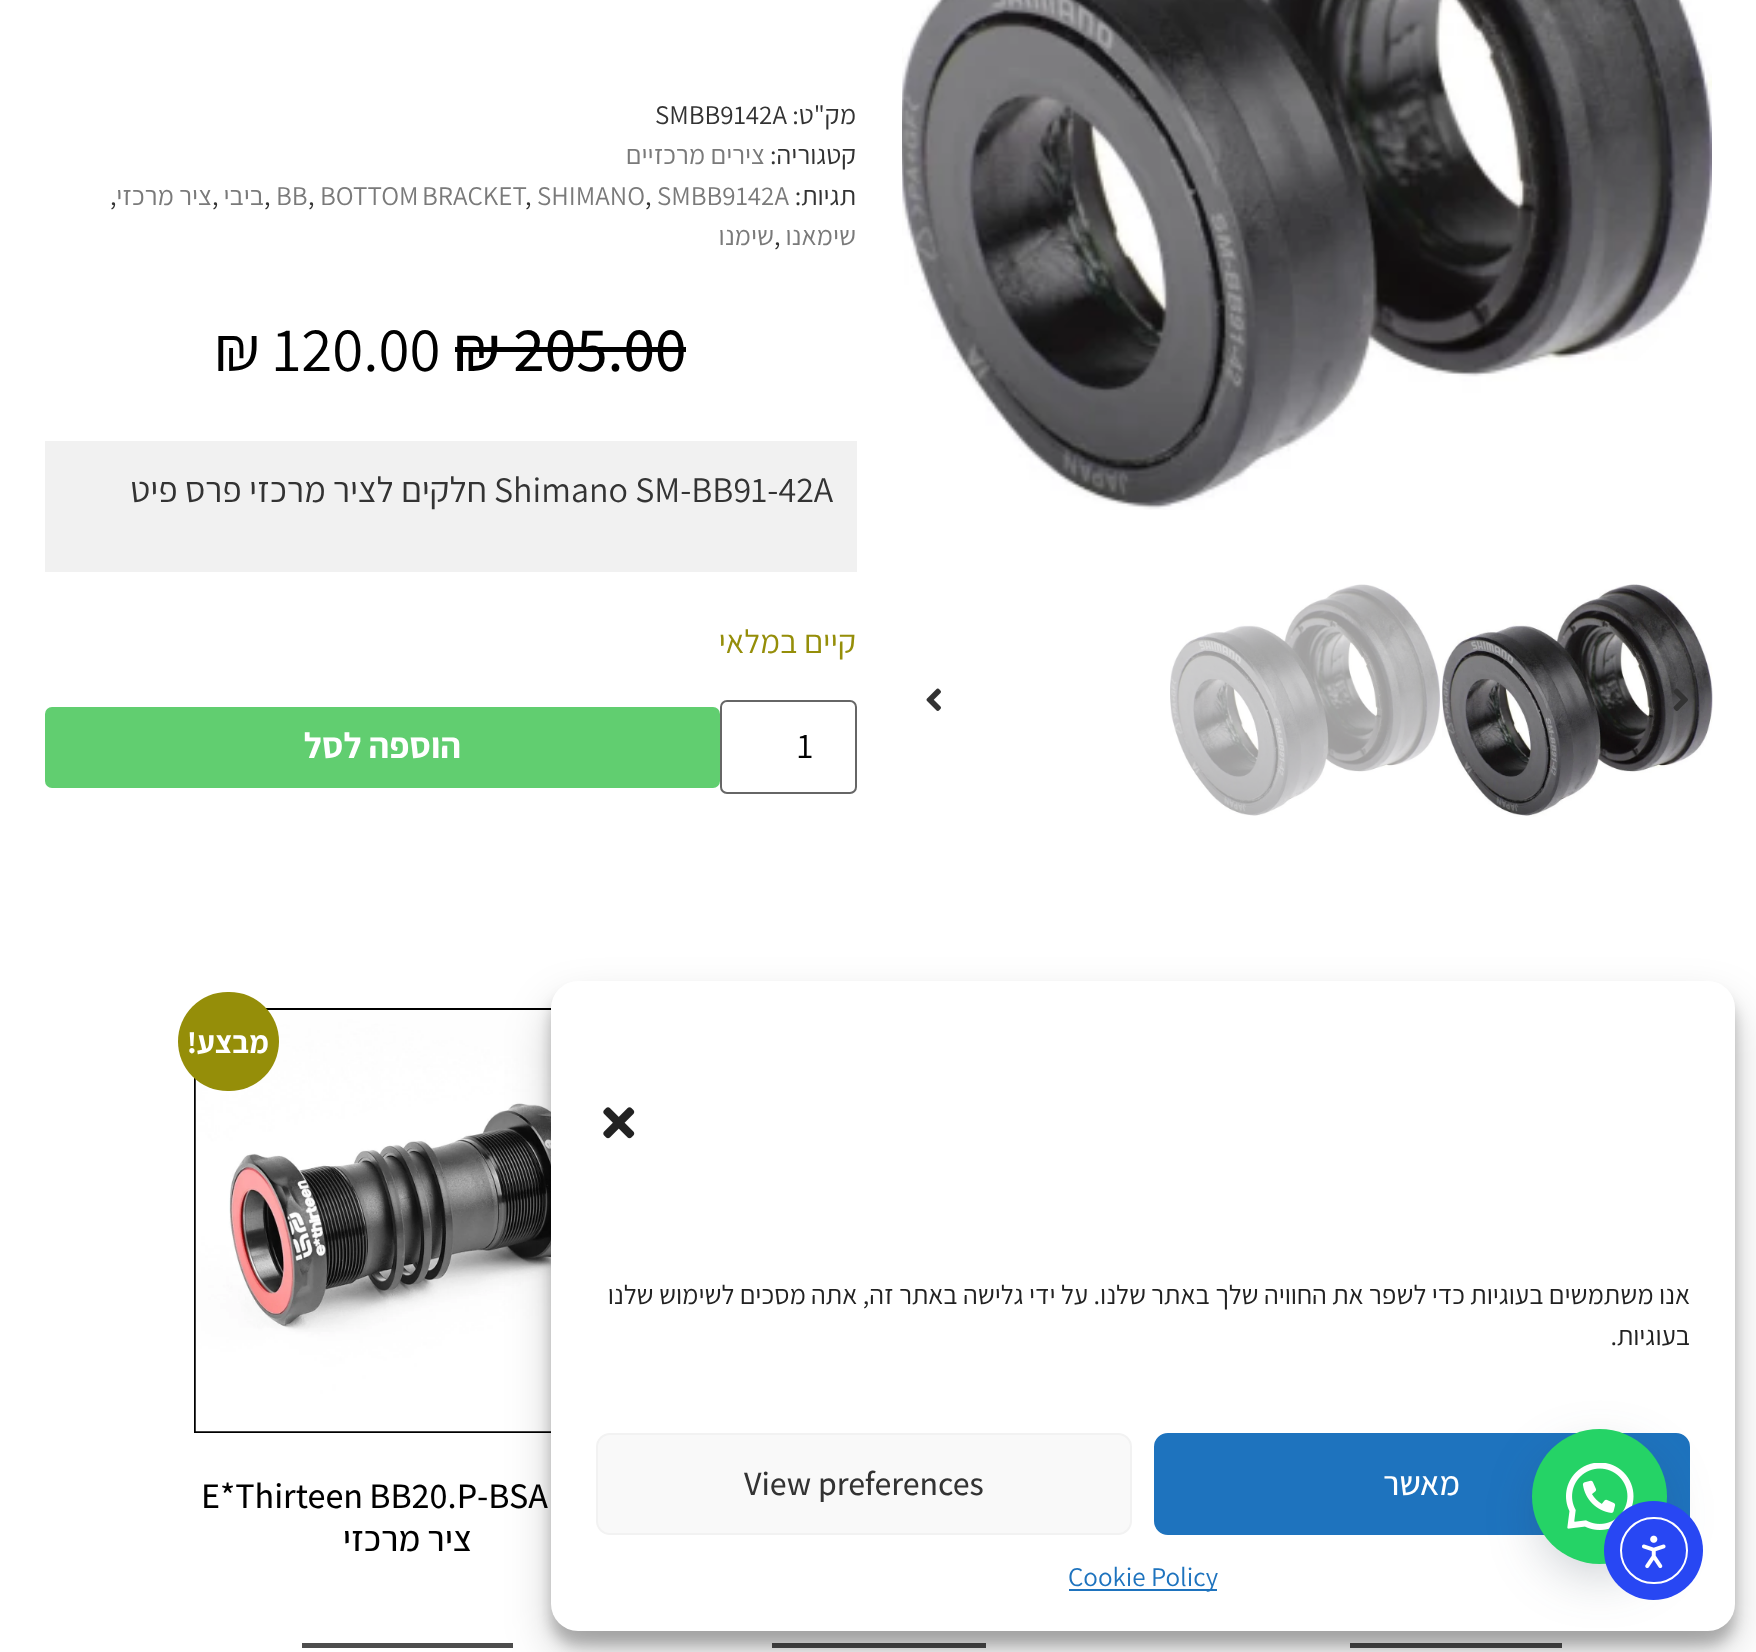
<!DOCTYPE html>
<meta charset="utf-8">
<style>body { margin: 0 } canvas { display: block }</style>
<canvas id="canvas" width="1756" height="1652"></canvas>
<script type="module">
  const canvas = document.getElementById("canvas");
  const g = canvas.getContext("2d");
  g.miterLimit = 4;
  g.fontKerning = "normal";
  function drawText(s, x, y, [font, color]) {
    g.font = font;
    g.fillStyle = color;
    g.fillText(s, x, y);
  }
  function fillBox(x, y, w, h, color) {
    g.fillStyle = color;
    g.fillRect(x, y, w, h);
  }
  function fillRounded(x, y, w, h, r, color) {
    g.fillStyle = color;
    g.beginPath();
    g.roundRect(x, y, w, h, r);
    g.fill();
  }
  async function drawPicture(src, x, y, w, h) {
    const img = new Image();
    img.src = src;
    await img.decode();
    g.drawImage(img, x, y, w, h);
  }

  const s1 = ["27px Assistant", "#222222"];
  const s2 = ["500 33.75px Assistant", "#FFFFFF"];
  const s3 = ["500 33.75px Assistant", "#333333"];
  const s4 = ["27px Assistant", "#1E73BE"];
  const s5 = ["27px Assistant", "#333333"];
  const s6 = ["27px Assistant", "#7A7A7A"];
  const s7 = ["500 63px Assistant", "#000000"];
  const s8 = ["63px Assistant", "#000000"];
  const s9 = ["36px Assistant", "#333333"];
  const s10 = ["33px Assistant", "#958E09"];
  const s11 = ["36px Assistant", "#000000"];
  const s12 = ["bold 36px Assistant", "#FFFFFF"];
  const s13 = ["bold 31px Assistant", "#FFFFFF"];
  const s14 = ["500 36px Assistant", "#000000"];

  fillBox(0, 0, 1756, 1652, "#FFFFFF");
  g.strokeStyle = "#000000";
  g.lineWidth = 2;
  g.strokeRect(195, 1009, 425, 423);
  await drawPicture("pic7.png", 195, 1010, 356, 422);
  fillBox(1350, 1643, 212, 5, "#4D4D4D");
  fillBox(772, 1643, 214, 5, "#4D4D4D");
  g.fillStyle = "rgba(0, 0, 0, 0.23)";
  g.filter = "blur(7px)";
  g.beginPath();
  g.roundRect(551, 995, 1184, 650, 27);
  g.fill();
  g.filter = "none";
  fillBox(302, 1643, 211, 5, "#4D4D4D");
  g.fillStyle = "rgba(0, 0, 0, 0.19)";
  g.filter = "blur(22.5px)";
  g.beginPath();
  g.roundRect(551, 1004, 1184, 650, 27);
  g.fill();
  g.filter = "none";
  fillRounded(551, 981, 1184, 650, 27, "#FFFFFF");
  await drawPicture("pic1.png", 603, 1107, 32, 32);
  g.direction = "rtl";
  drawText("אנו משתמשים בעוגיות כדי לשפר את החוויה שלך באתר שלנו. על ידי גלישה באתר זה, אתה מסכים לשימוש שלנו", 1690, 1304, s1);
  drawText("בעוגיות.", 1690, 1345, s1);
  g.fillStyle = "#1E73BE";
  g.beginPath();
  g.roundRect(1155, 1434, 534, 100, 13);
  g.fill();
  g.strokeStyle = "#1E73BE";
  g.stroke();
  drawText("מאשר", 1460, 1495, s2);
  g.fillStyle = "#F9F9F9";
  g.beginPath();
  g.roundRect(597, 1434, 534, 100, 13);
  g.fill();
  g.strokeStyle = "#F2F2F2";
  g.stroke();
  g.direction = "ltr";
  drawText("View preferences", 744, 1495, s3);
  fillBox(1069, 1589, 148, 2, "#1E73BE");
  drawText("Cookie Policy", 1068, 1586, s4);
  await drawPicture("pic2.png", 902, 0, 810, 510);
  await drawPicture("pic3.png", 1442, 584, 271, 233);
  await drawPicture("pic4.png", 1170, 584, 270, 232);
  await drawPicture("pic5.png", 926, 688, 15, 23);
  await drawPicture("pic6.png", 1673, 688, 15, 23);
  g.direction = "rtl";
  drawText("מק\"ט:", 856, 124, s5);
  g.direction = "ltr";
  drawText("SMBB9142A", 655, 124, s5);
  g.direction = "rtl";
  drawText("קטגוריה:", 856, 164, s5);
  drawText("צירים מרכזיים", 765, 164, s6);
  drawText("תגיות:", 856, 205, s5);
  g.direction = "ltr";
  drawText("SMBB9142A", 657, 205, s6);
  drawText("SHIMANO", 537, 205, s6);
  g.wordSpacing = "-2px";
  drawText("BOTTOM BRACKET", 320, 205, s6);
  g.wordSpacing = "0px";
  drawText("BB", 276, 205, s6);
  g.direction = "rtl";
  drawText("ביבי", 264, 205, s6);
  drawText("ציר מרכזי", 212, 205, s6);
  g.direction = "ltr";
  drawText(",", 645, 205, s5);
  drawText(",", 525, 205, s5);
  drawText(",", 308, 205, s5);
  drawText(",", 264, 205, s5);
  drawText(",", 212, 205, s5);
  drawText(",", 110, 205, s5);
  g.direction = "rtl";
  drawText("שימאנו", 856, 245, s6);
  g.direction = "ltr";
  drawText(",", 774, 245, s5);
  g.direction = "rtl";
  drawText("שימנו", 774, 245, s6);
  g.direction = "ltr";
  drawText("₪ 205.00", 453, 371, s7);
  fillBox(455, 347, 231, 5, "#000000");
  drawText("₪ 120.00", 214, 371, s8);
  fillBox(45, 441, 812, 131, "#F1F1F1");
  drawText("Shimano SM-BB91-42A", 494, 502, s9);
  g.direction = "rtl";
  drawText("חלקים לציר מרכזי פרס פיט", 487, 502, s9);
  drawText("קיים במלאי", 856, 653, s10);
  g.beginPath();
  g.roundRect(721, 701, 135, 92, 6);
  g.strokeStyle = "#666666";
  g.stroke();
  g.direction = "ltr";
  drawText("1", 797, 758, s11);
  fillRounded(45, 707, 675, 81, 7, "#61CE70");
  g.direction = "rtl";
  drawText("הוספה לסל", 461, 758, s12);
  fillRounded(178, 992, 101, 99, 49.5, "#958E09");
  drawText("מבצע!", 269, 1053, s13);
  g.wordSpacing = "-1px";
  g.direction = "ltr";
  drawText("E*Thirteen BB20.P-BSA", 201, 1508, s14);
  g.wordSpacing = "0px";
  g.direction = "rtl";
  drawText("ציר מרכזי", 472, 1551, s14);
  g.fillStyle = "rgba(45, 62, 79, 0.3)";
  g.filter = "blur(28px)";
  g.beginPath();
  g.roundRect(1544, 1458, 112, 113, 56);
  g.fill();
  g.filter = "none";
  g.fillStyle = "#25D366";
  g.beginPath();
  g.arc(1599.5, 1496.5, 67.5, 0, Math.PI * 2);
  g.fill();
  await drawPicture("pic8.png", 1566, 1463, 68, 67);
  g.fillStyle = "#2847F3";
  g.beginPath();
  g.arc(1653.5, 1550.5, 49.5, 0, Math.PI * 2);
  g.fill();
  g.beginPath();
  g.roundRect(1621, 1518, 66, 65, 32.5);
  g.strokeStyle = "#FFFFFF";
  g.stroke();
  await drawPicture("pic9.png", 1642, 1535, 24, 34);
</script>
